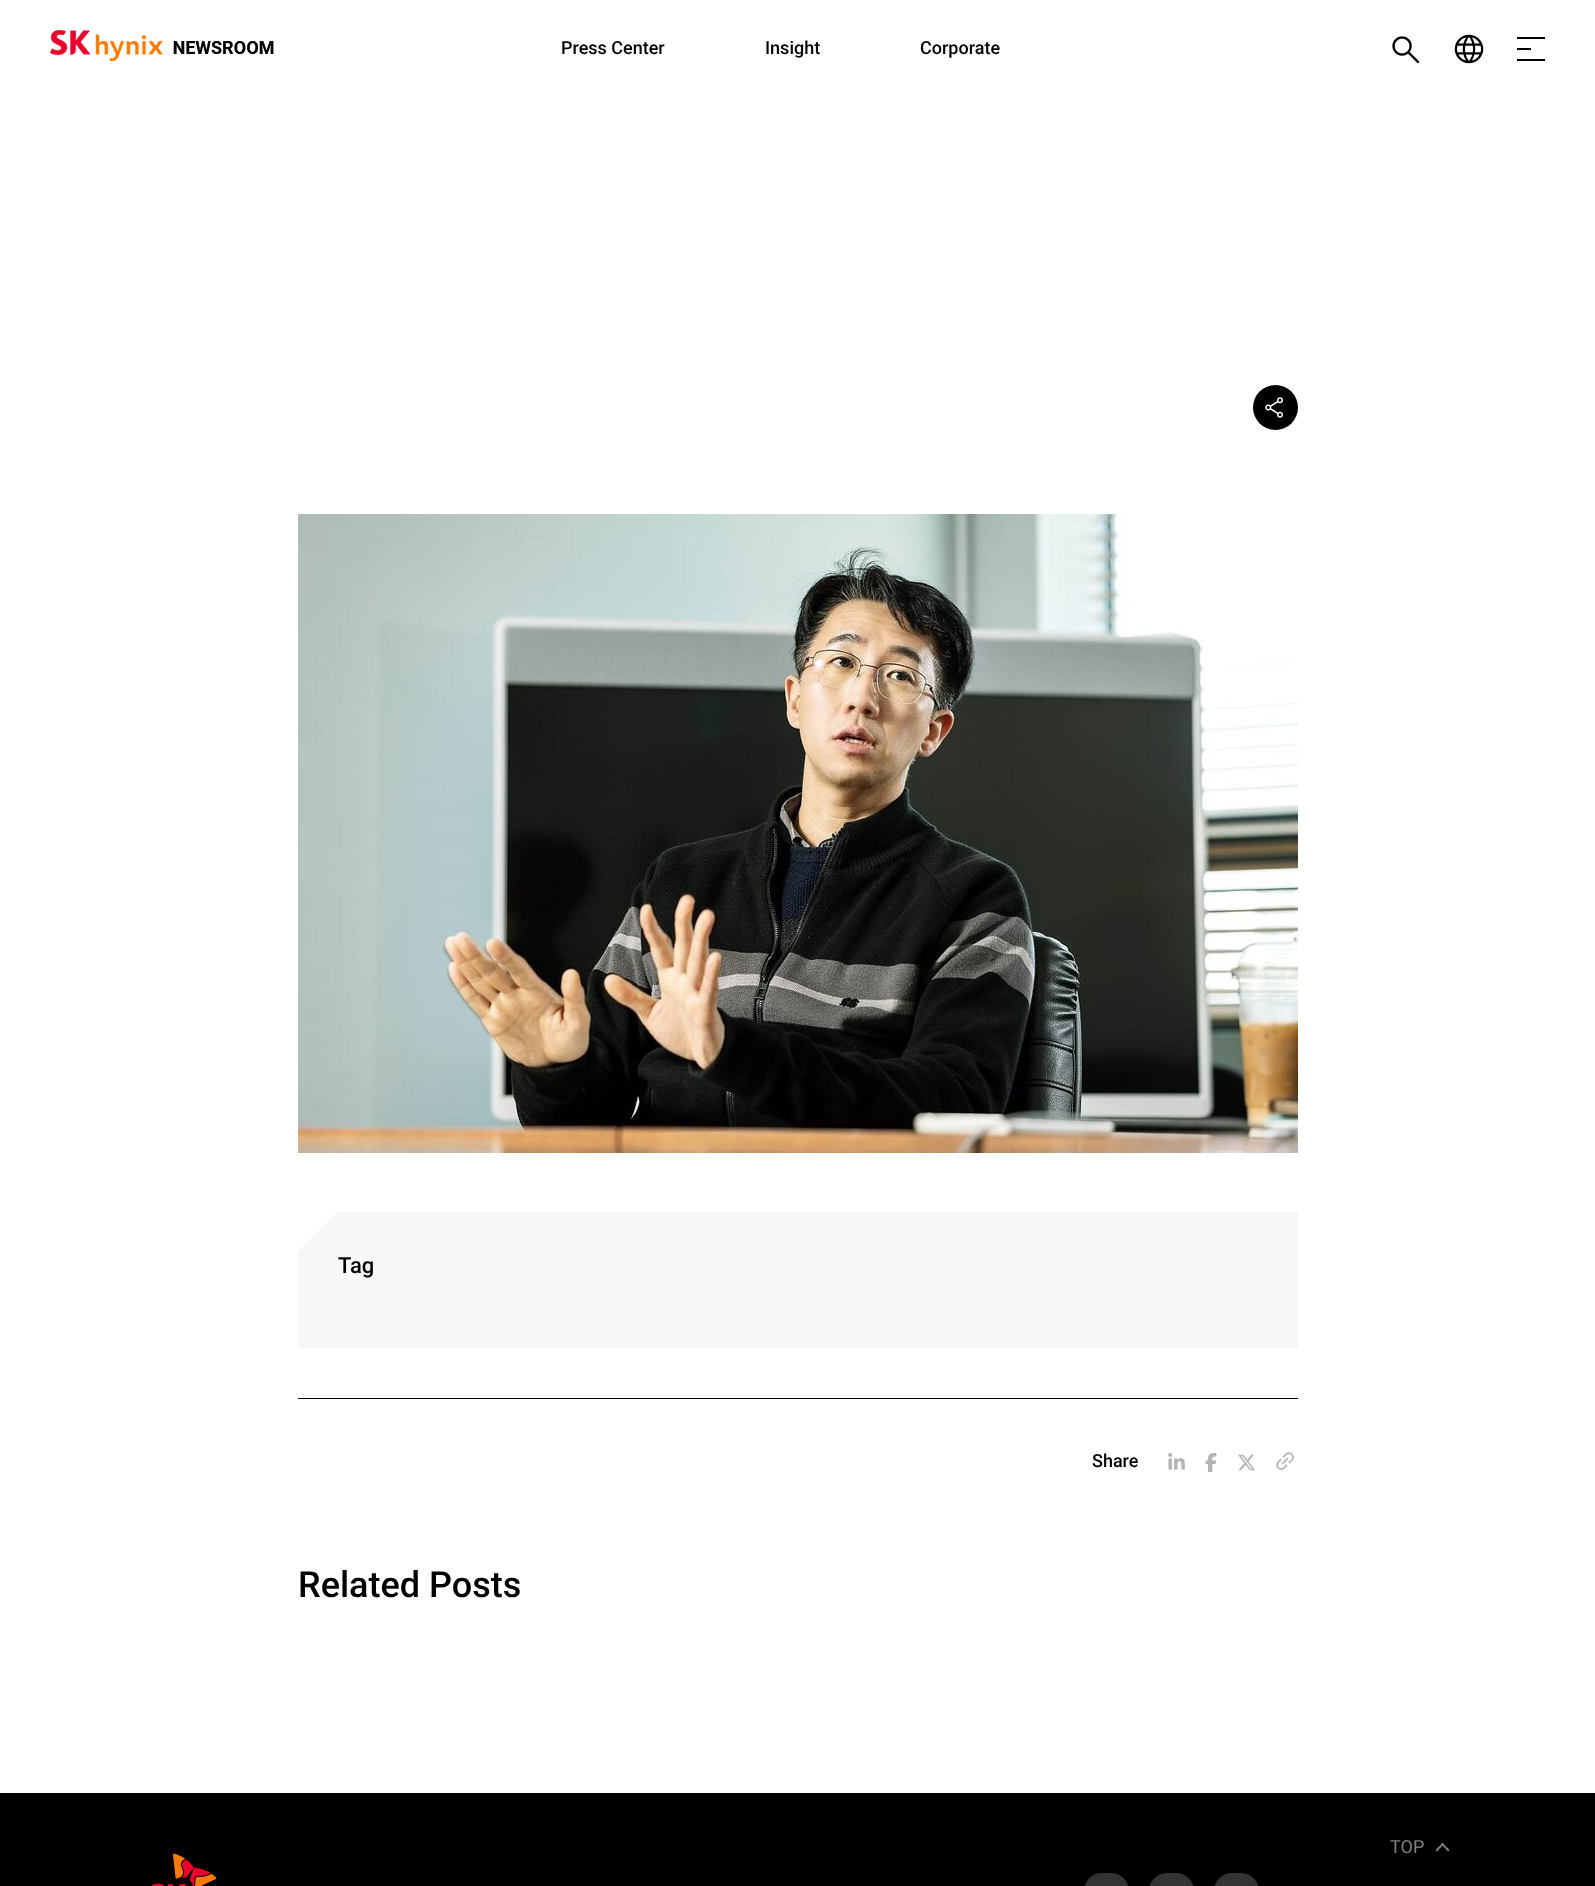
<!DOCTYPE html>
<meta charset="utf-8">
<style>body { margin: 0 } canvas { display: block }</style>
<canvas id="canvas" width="1595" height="1886"></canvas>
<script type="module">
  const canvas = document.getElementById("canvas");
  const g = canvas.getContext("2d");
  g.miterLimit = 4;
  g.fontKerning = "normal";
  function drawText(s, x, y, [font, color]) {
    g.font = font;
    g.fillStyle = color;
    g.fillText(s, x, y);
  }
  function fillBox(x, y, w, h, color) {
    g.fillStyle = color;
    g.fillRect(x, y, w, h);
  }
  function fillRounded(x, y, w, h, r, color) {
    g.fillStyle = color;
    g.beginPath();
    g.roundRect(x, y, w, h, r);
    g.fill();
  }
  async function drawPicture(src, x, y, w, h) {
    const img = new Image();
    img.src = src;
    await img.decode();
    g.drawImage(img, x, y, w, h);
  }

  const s1 = ["500 18px Roboto", "#000000"];
  const s2 = ["500 22px Roboto", "#000000"];
  const s3 = ["500 36px Roboto", "#000000"];
  const s4 = ["18px Roboto", "#808080"];

  fillBox(0, 0, 1595, 1886, "#FFFFFF");
  await drawPicture("pic1.png", 50, 30, 224, 31);
  drawText("Press Center", 561, 54, s1);
  drawText("Insight", 765, 54, s1);
  drawText("Corporate", 920, 54, s1);
  await drawPicture("pic2.png", 1392, 36, 28, 28);
  await drawPicture("pic3.png", 1454, 34, 30, 30);
  fillBox(1517, 37, 28, 2, "#000000");
  fillBox(1517, 48, 14, 2, "#000000");
  fillBox(1517, 59, 28, 2, "#000000");
  g.beginPath();
  g.arc(1275.5, 407.5, 22.5, 0, Math.PI * 2);
  g.fill();
  await drawPicture("pic4.png", 1265, 397, 18, 21);
  await drawPicture("pic5.png", 298, 514, 1000, 639);
  g.fillStyle = "#F7F7F7";
  g.beginPath();
  g.moveTo(298, 1251);
  g.lineTo(337, 1212);
  g.lineTo(1298, 1212);
  g.lineTo(1298, 1348);
  g.lineTo(298, 1348);
  g.closePath();
  g.fill();
  drawText("Tag", 338, 1273, s2);
  fillBox(298, 1398, 1000, 1, "#000000");
  drawText("Share", 1092, 1467, s1);
  await drawPicture("pic6.png", 1168, 1453, 17, 17);
  await drawPicture("pic7.png", 1205, 1453, 12, 19);
  await drawPicture("pic8.png", 1238, 1454, 17, 17);
  await drawPicture("pic9.png", 1276, 1452, 18, 18);
  drawText("Related Posts", 298, 1597, s3);
  fillBox(0, 1793, 1595, 93, "#000000");
  drawText("TOP", 1390, 1853, s4);
  g.beginPath();
  g.moveTo(1444, 1844);
  g.lineTo(1437, 1851.5);
  g.lineTo(1435.5, 1850);
  g.lineTo(1442.5, 1843);
  g.closePath();
  g.fill();
  g.beginPath();
  g.moveTo(1449.5, 1850);
  g.lineTo(1448, 1851.5);
  g.lineTo(1441, 1844);
  g.lineTo(1442.5, 1843);
  g.closePath();
  g.fill();
  await drawPicture("pic10.png", 151, 1853, 66, 33);
  fillRounded(1084, 1873, 45, 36, 22.5, "#333333");
  fillRounded(1149, 1873, 45, 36, 22.5, "#333333");
  fillRounded(1214, 1873, 45, 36, 22.5, "#333333");
</script>
